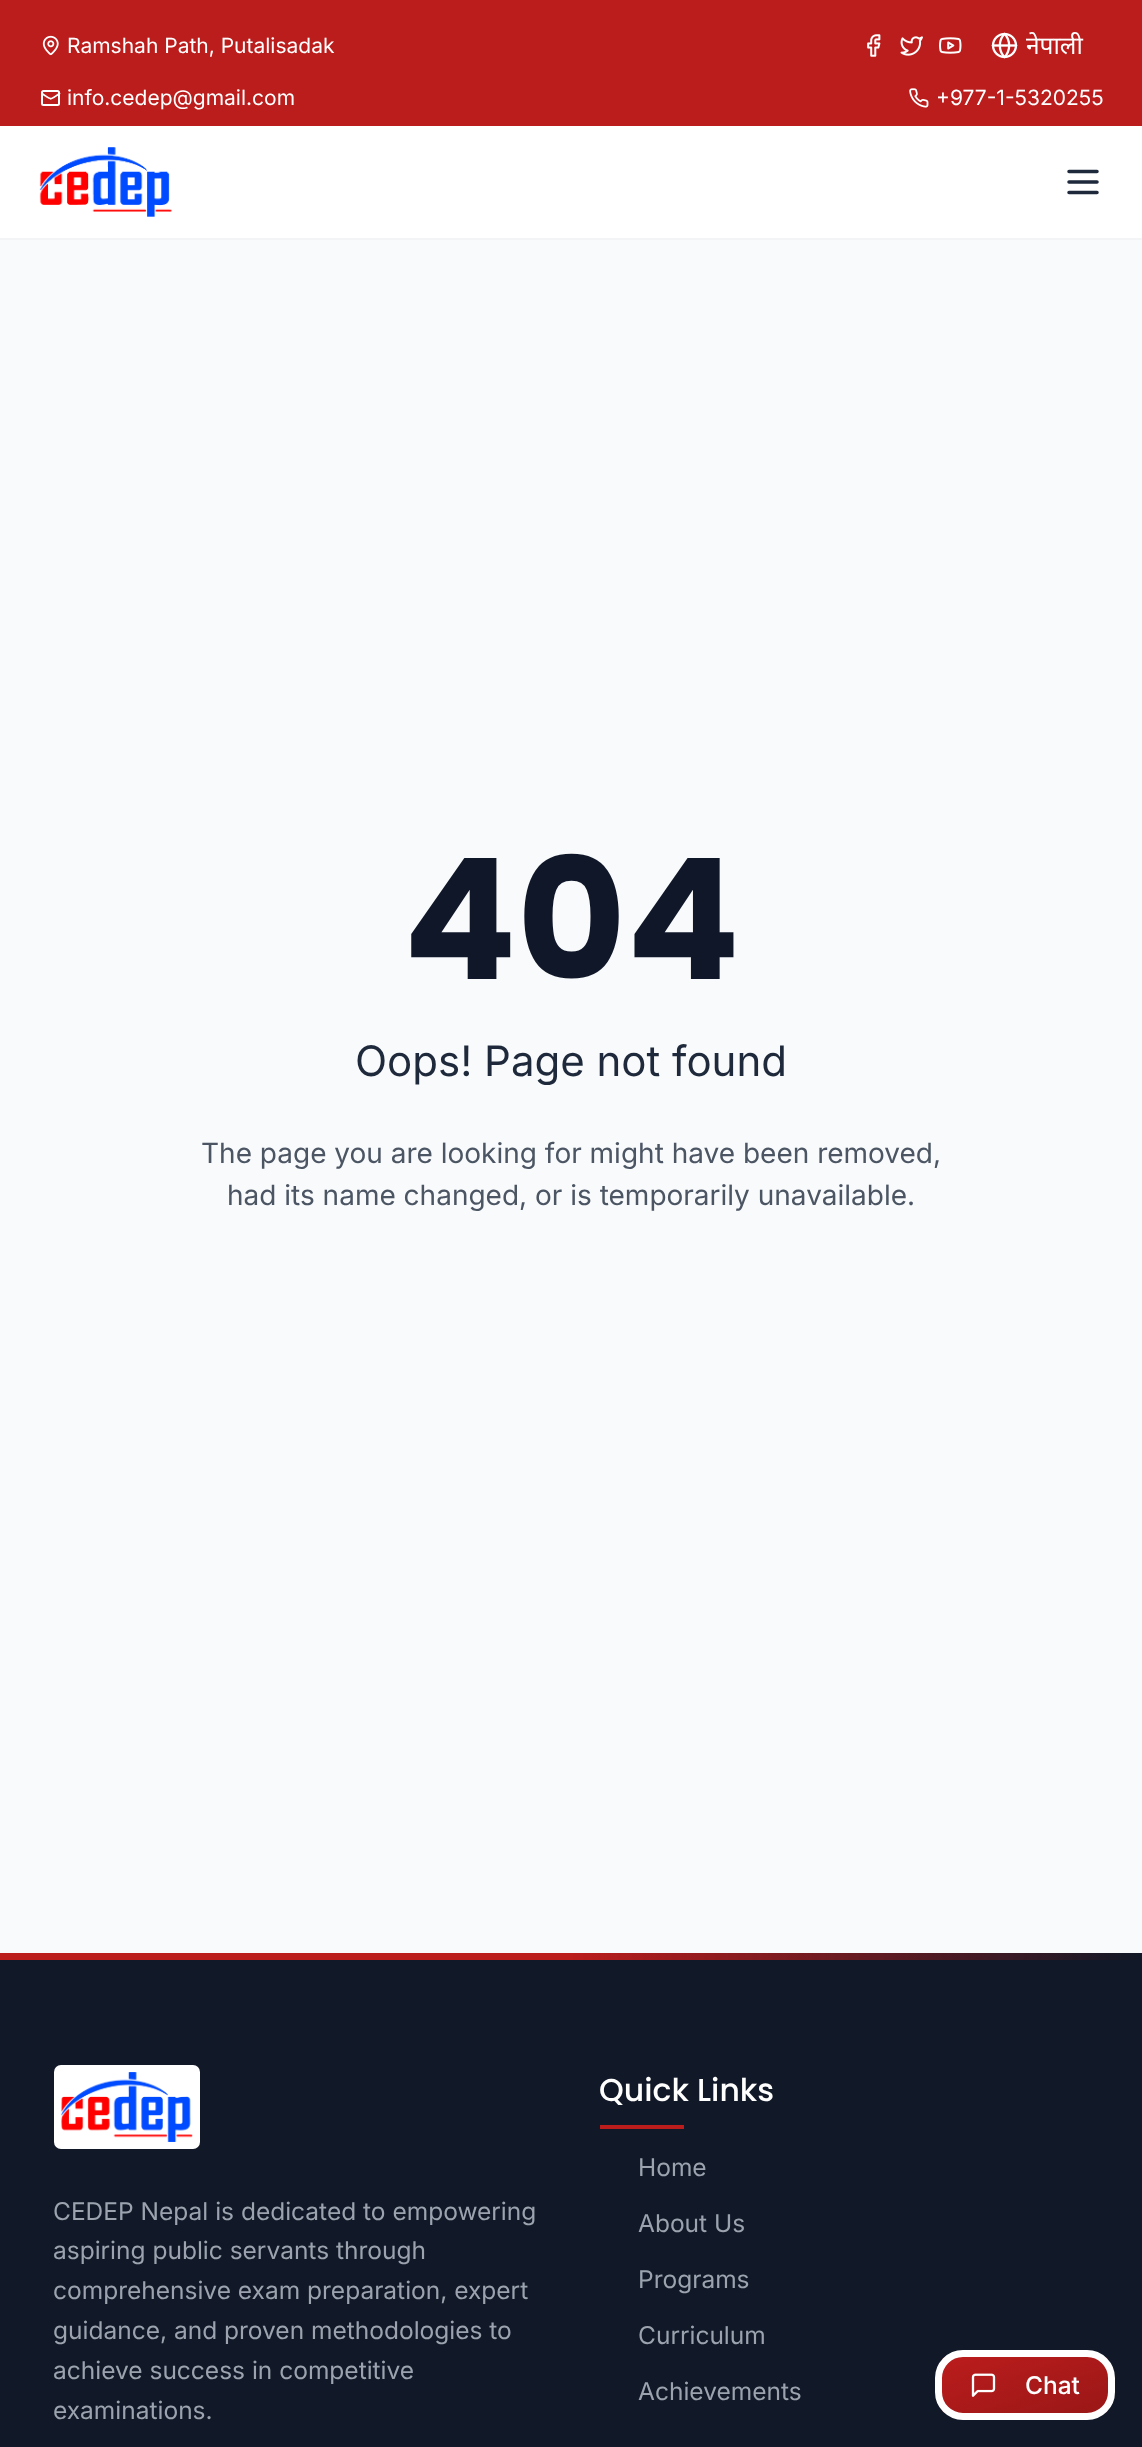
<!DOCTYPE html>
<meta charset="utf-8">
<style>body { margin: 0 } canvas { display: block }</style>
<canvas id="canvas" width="1142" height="2447"></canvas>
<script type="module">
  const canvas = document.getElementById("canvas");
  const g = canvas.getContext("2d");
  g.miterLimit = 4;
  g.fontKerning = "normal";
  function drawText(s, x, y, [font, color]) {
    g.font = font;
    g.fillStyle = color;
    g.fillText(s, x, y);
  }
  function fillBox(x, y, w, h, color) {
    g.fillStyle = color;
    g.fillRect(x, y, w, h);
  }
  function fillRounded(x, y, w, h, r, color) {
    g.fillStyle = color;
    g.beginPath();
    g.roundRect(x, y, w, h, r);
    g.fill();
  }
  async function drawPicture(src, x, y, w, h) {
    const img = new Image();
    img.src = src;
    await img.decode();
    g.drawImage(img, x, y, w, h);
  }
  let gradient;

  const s1 = ["21px Inter", "#FFFFFF"];
  const s2 = ["24.5px Noto Sans", "#FFFFFF"];
  const s3 = ["bold 168px Poppins", "#0F1729"];
  const s4 = ["42px Inter", "#1E293B"];
  const s5 = ["28px Inter", "#4B5563"];
  const s6 = ["24.5px Inter", "#9CA3AF"];
  const s7 = ["500 31.5px Poppins", "#FFFFFF"];
  const s8 = ["500 24.5px Inter", "#FFFFFF"];

  fillBox(0, 0, 1142, 2447, "#FFFFFF");
  fillBox(0, 0, 1142, 126, "#BB1C1C");
  await drawPicture("pic1.png", 42, 35, 17, 21);
  drawText("Ramshah Path, Putalisadak", 67, 53, s1);
  await drawPicture("pic2.png", 867, 34, 14, 23);
  await drawPicture("pic3.png", 900, 36, 23, 20);
  await drawPicture("pic4.png", 939, 37, 23, 17);
  drawText("नेपाली", 1026, 54, s2);
  await drawPicture("pic5.png", 991, 32, 27, 27);
  g.beginPath();
  g.roundRect(42, 91, 17, 14, 1.5);
  g.strokeStyle = "#FFFFFF";
  g.lineWidth = 2;
  g.stroke();
  g.beginPath();
  g.moveTo(59.5, 93.5);
  g.bezierCurveTo(49, 100.5, 52.5, 100.5, 42, 93.5);
  g.lineWidth = 1.8;
  g.lineCap = "round";
  g.lineJoin = "round";
  g.stroke();
  drawText("info.cedep@gmail.com", 67, 105, s1);
  await drawPicture("pic6.png", 909, 88, 20, 20);
  drawText("+977-1-5320255", 936, 105, s1);
  fillBox(0, 238, 1142, 2, "#F3F4F6");
  await drawPicture("pic7.png", 39, 147, 133, 70);
  g.beginPath();
  g.moveTo(1069, 182);
  g.lineTo(1097, 182);
  g.moveTo(1069, 171.5);
  g.lineTo(1097, 171.5);
  g.moveTo(1069, 192.5);
  g.lineTo(1097, 192.5);
  g.strokeStyle = "#1E293B";
  g.lineWidth = 3.5;
  g.stroke();
  fillBox(0, 240, 1142, 1713, "#F9FAFB");
  drawText("404", 403, 979, s3);
  drawText("Oops! Page not found", 355, 1076, s4);
  drawText("The page you are looking for might have been removed,", 201, 1163, s5);
  drawText("had its name changed, or is temporarily unavailable.", 227, 1205, s5);
  fillBox(0, 1960, 1142, 487, "#111827");
  gradient = g.createLinearGradient(0, 1957, 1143, 1957);
  gradient.addColorStop(0, "#BB1C1C");
  gradient.addColorStop(0.5, "#BB1C1C");
  gradient.addColorStop(1, "#111827");
  g.fillStyle = gradient;
  g.fillRect(0, 1953, 1142, 7);
  fillRounded(54, 2065, 146, 84, 7, "#FFFFFF");
  await drawPicture("pic8.png", 61, 2072, 132, 70);
  drawText("CEDEP Nepal is dedicated to empowering", 53, 2220, s6);
  drawText("aspiring public servants through", 53, 2259, s6);
  drawText("comprehensive exam preparation, expert", 53, 2299, s6);
  drawText("guidance, and proven methodologies to", 53, 2339, s6);
  drawText("achieve success in competitive", 53, 2379, s6);
  drawText("examinations.", 53, 2419, s6);
  drawText("Quick Links", 599, 2101, s7);
  fillBox(600, 2125, 84, 4, "#BB1C1C");
  drawText("Home", 638, 2176, s6);
  drawText("About Us", 638, 2232, s6);
  drawText("Programs", 638, 2288, s6);
  drawText("Curriculum", 638, 2344, s6);
  drawText("Achievements", 638, 2400, s6);
  g.save();
  g.beginPath();
  g.roundRect(935, 2350, 180, 70, 28);
  g.clip();
  gradient = g.createLinearGradient(1008, 2335, 1042, 2436);
  gradient.addColorStop(0, "#BB1C1C");
  gradient.addColorStop(1, "#9A1717");
  g.fillStyle = gradient;
  g.fillRect(942, 2357, 166, 56);
  g.restore();
  g.beginPath();
  g.roundRect(938.5, 2353.5, 173, 63, 24.5);
  g.strokeStyle = "#FFFFFF";
  g.lineWidth = 7;
  g.lineJoin = "miter";
  g.stroke();
  await drawPicture("pic9.png", 971, 2373, 25, 24);
  drawText("Chat", 1025, 2394, s8);
</script>
